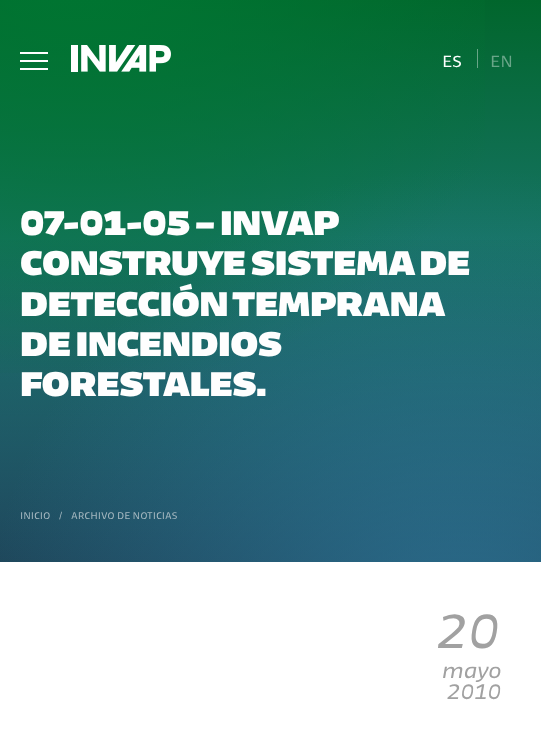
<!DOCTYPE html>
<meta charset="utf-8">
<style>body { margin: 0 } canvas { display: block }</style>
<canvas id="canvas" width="541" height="734"></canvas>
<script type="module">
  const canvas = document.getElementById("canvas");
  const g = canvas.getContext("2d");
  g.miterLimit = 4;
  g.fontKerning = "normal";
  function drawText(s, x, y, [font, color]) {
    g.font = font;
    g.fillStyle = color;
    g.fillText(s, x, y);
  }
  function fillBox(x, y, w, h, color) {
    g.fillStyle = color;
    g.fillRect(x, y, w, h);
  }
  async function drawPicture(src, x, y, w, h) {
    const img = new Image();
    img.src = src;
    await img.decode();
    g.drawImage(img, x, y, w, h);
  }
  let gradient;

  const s1 = ["500 16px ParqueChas", "#FEFEFE"];
  const s2 = ["500 16px ParqueChas", "#69A588"];
  const s3 = ["900 33.6px ParqueChas", "#FEFEFE"];
  const s4 = ["500 9.6px ParqueChas", "#A5B8C0"];
  const s5 = ["italic 500 48px ParqueChas", "#A1A1A1"];
  const s6 = ["italic 500 21px ParqueChas", "#A1A1A1"];

  fillBox(0, 0, 541, 734, "#FFFFFF");
  gradient = g.createLinearGradient(270, 0, 271, 562);
  gradient.addColorStop(0, "#01662C");
  gradient.addColorStop(1, "#3385AD");
  g.fillStyle = gradient;
  g.fillRect(0, 0, 541, 562);
  gradient = g.createLinearGradient(271, 225, 271, 562);
  gradient.addColorStop(0, "rgba(10, 10, 10, 0)");
  gradient.addColorStop(1, "rgba(10, 10, 10, 0.5)");
  g.fillStyle = gradient;
  g.fillRect(0, 240, 541, 322);
  gradient = g.createRadialGradient(80, -80, 0, 80, -80, 679);
  gradient.addColorStop(0, "#007732");
  gradient.addColorStop(0.7, "rgba(0, 119, 50, 0)");
  g.fillStyle = gradient;
  g.fillRect(0, 0, 485, 373);
  fillBox(20, 68, 28, 2, "#FEFEFE");
  fillBox(20, 52, 28, 2, "#FEFEFE");
  fillBox(20, 60, 28, 2, "#FEFEFE");
  await drawPicture("pic1.png", 71, 45, 100, 27);
  fillBox(477, 49, 1, 19, "rgba(254, 254, 254, 0.4)");
  drawText("ES", 442, 67, s1);
  drawText("EN", 490, 67, s2);
  g.save();
  g.beginPath();
  g.rect(0, 0, 541, 562);
  g.clip();
  gradient = g.createRadialGradient(461, 642, 0, 461, 642, 679);
  gradient.addColorStop(0, "rgba(51, 133, 173, 0.6)");
  gradient.addColorStop(0.7, "rgba(51, 133, 173, 0)");
  g.fillStyle = gradient;
  g.beginPath();
  g.arc(461, 642, 480, 0, Math.PI * 2);
  g.fill();
  g.restore();
  g.letterSpacing = "-0.5px";
  drawText("07-01-05 – INVAP", 20, 235, s3);
  drawText("CONSTRUYE SISTEMA DE", 20, 275, s3);
  g.wordSpacing = "-1px";
  drawText("DETECCIÓN TEMPRANA", 20, 316, s3);
  g.wordSpacing = "0px";
  drawText("DE INCENDIOS", 20, 356, s3);
  drawText("FORESTALES.", 20, 396, s3);
  g.letterSpacing = "0px";
  drawText("INICIO", 20, 519, s4);
  drawText("/", 59, 519, s4);
  drawText("ARCHIVO DE NOTICIAS", 71, 519, s4);
  drawText("20", 437, 648, s5);
  drawText("mayo", 442, 678, s6);
  drawText("2010", 447, 699, s6);
</script>
